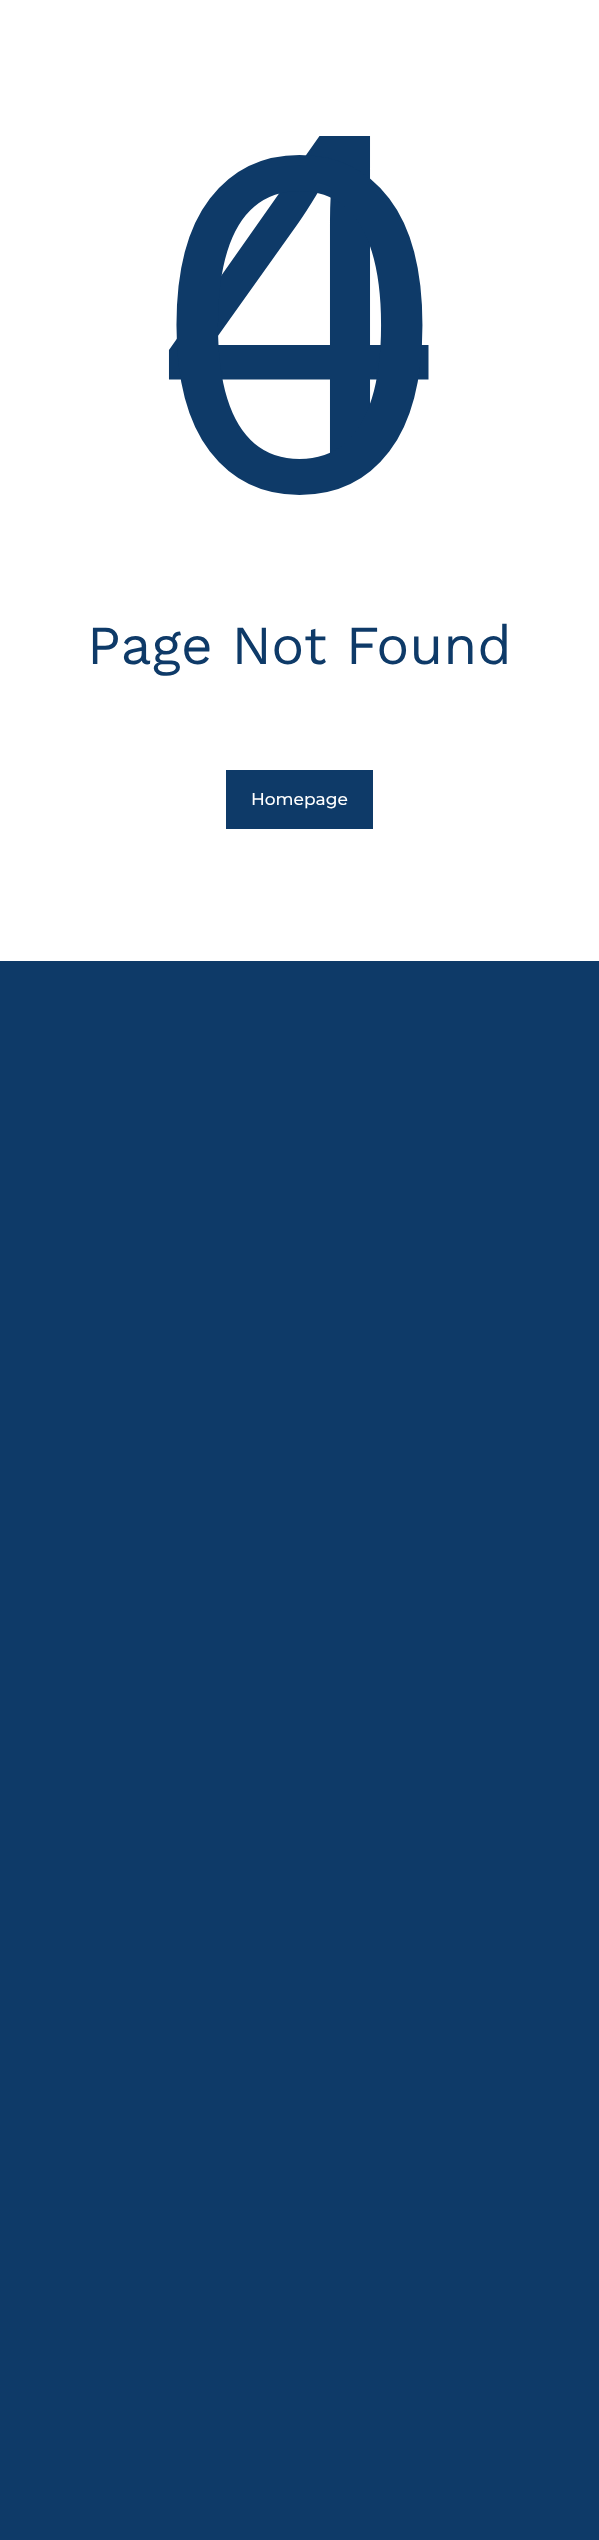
<!DOCTYPE html>
<meta charset="utf-8">
<style>body { margin: 0 } canvas { display: block }</style>
<canvas id="canvas" width="599" height="2540"></canvas>
<script type="module">
  const canvas = document.getElementById("canvas");
  const g = canvas.getContext("2d");
  g.miterLimit = 4;
  g.fontKerning = "normal";
  function drawText(s, x, y, [font, color]) {
    g.font = font;
    g.fillStyle = color;
    g.fillText(s, x, y);
  }
  function fillBox(x, y, w, h, color) {
    g.fillStyle = color;
    g.fillRect(x, y, w, h);
  }

  const s1 = ["500px Work Sans", "#0E3A68"];
  const s2 = ["55px Work Sans", "#0E3A68"];
  const s3 = ["100 17px Montserrat", "#FFFFFF"];

  fillBox(0, 0, 599, 2540, "#0E3A68");
  fillBox(0, 0, 599, 961, "#FFFFFF");
  drawText("4", 147, 466, s1);
  drawText("0", 144, 490, s1);
  drawText("Page Not Found", 87, 664, s2);
  fillBox(226, 770, 147, 59, "#0E3A68");
  drawText("Homepage", 251, 805, s3);
</script>
